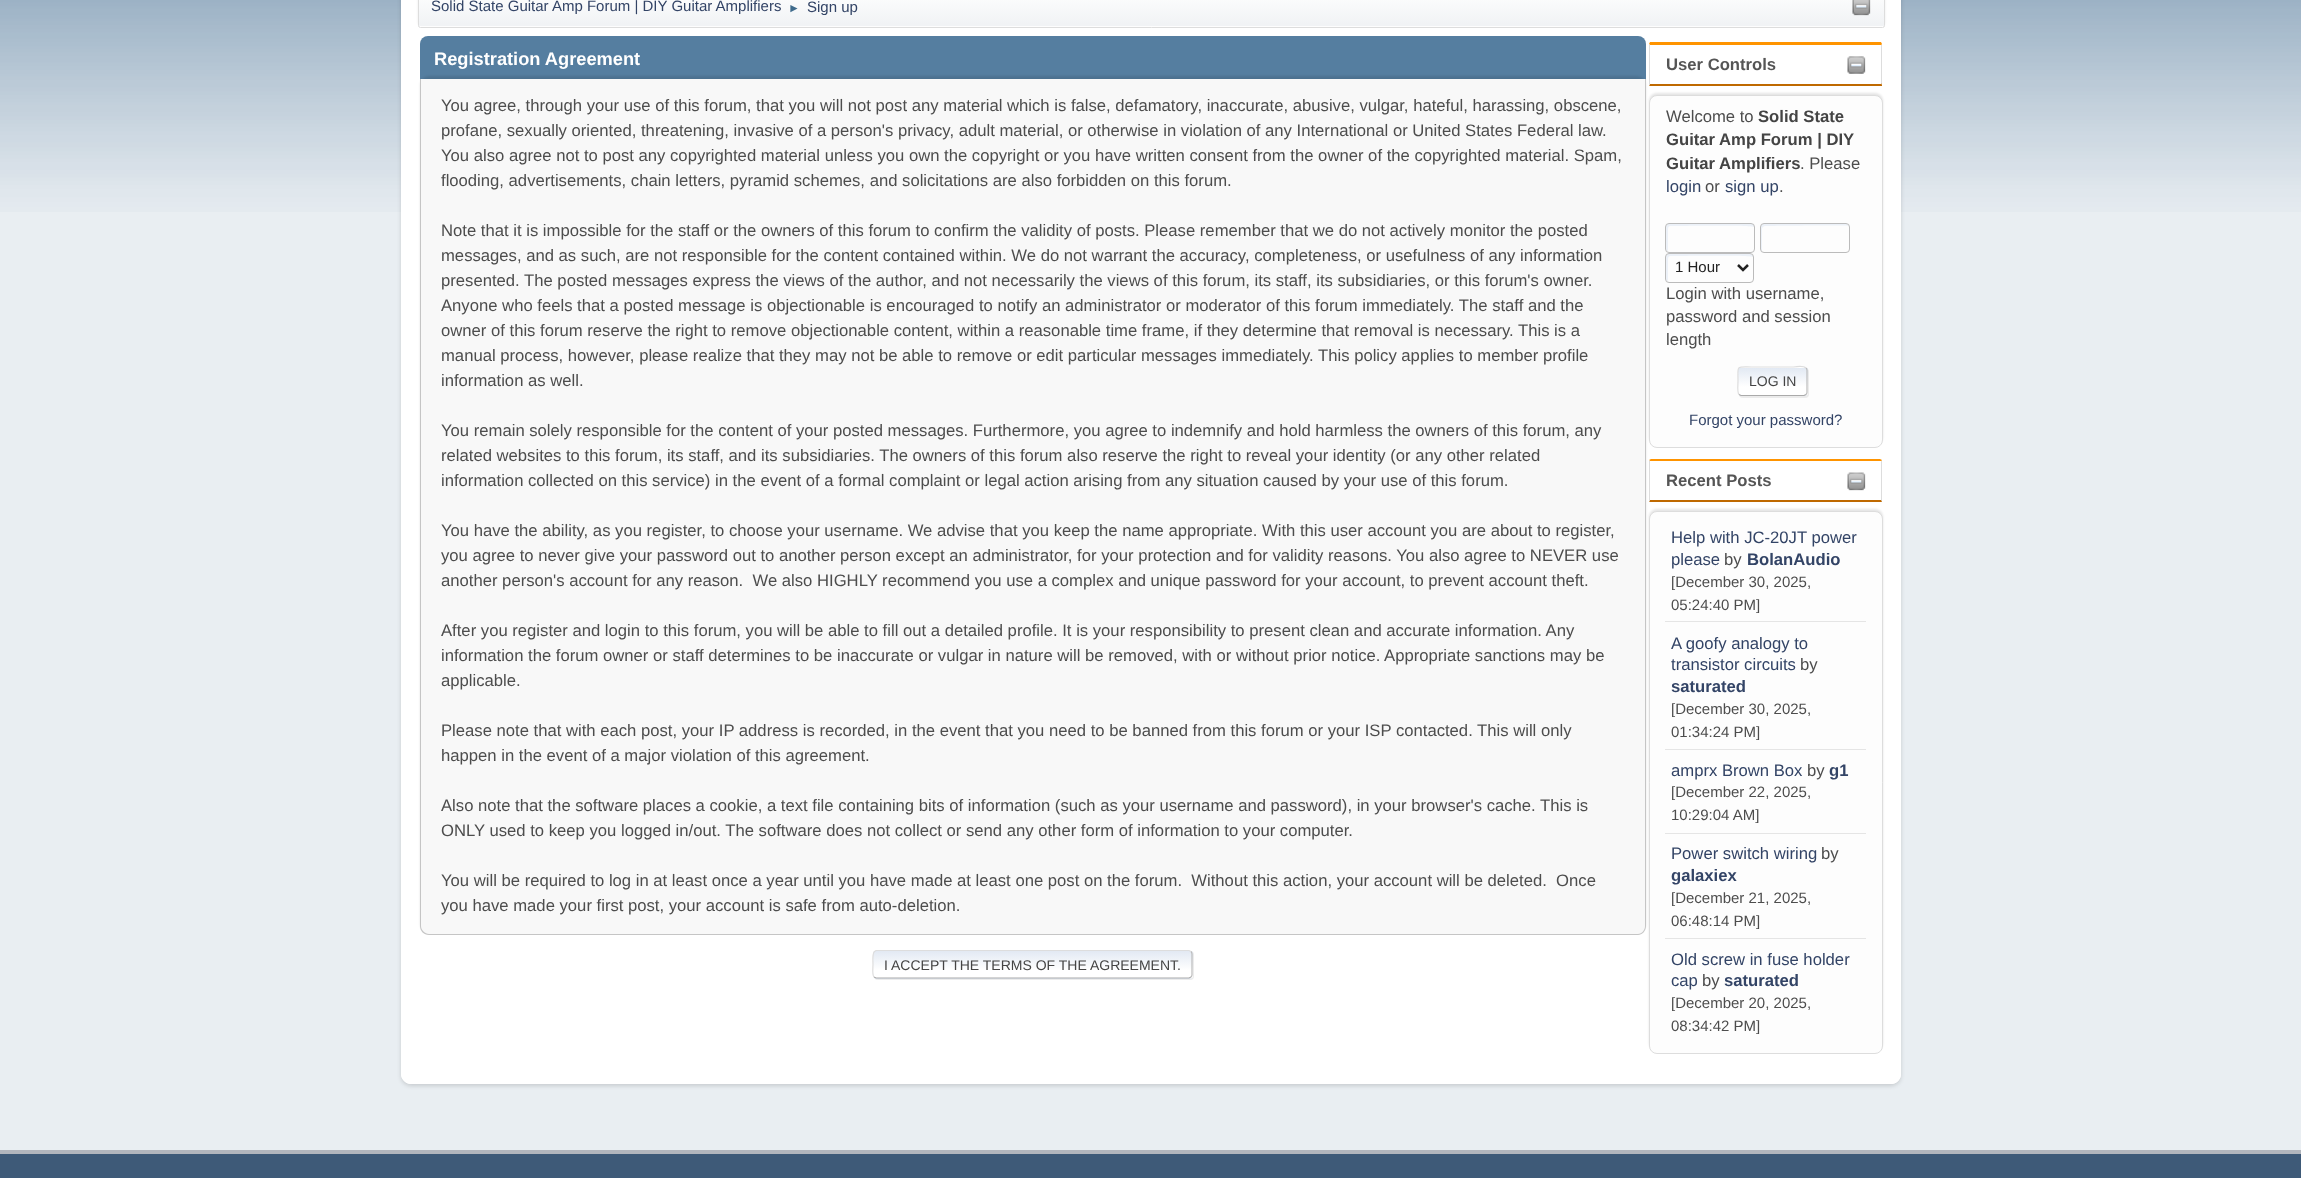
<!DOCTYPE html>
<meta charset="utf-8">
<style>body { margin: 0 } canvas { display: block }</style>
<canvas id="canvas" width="2301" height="1178"></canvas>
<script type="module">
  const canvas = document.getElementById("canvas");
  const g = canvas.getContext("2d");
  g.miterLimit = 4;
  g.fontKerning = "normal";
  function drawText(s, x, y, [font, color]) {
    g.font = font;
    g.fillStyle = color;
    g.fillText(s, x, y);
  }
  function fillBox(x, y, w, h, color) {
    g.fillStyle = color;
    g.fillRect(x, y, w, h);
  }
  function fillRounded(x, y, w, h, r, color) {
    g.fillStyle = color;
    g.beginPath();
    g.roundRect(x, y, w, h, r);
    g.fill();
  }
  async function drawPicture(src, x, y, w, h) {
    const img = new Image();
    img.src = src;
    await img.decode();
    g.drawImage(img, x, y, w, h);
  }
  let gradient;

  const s1 = ["15px Liberation Sans", "#334466"];
  const s2 = ["12px Liberation Sans", "#3F6B8C"];
  const s3 = ["bold 18.25px Liberation Sans", "#FFFFFF"];
  const s4 = ["16.67px Liberation Sans", "#4D4D4D"];
  const s5 = ["14px Liberation Sans", "#444444"];
  const s6 = ["bold 16.67px Liberation Sans", "#555555"];
  const s7 = ["bold 16.67px Liberation Sans", "#444444"];
  const s8 = ["16.67px Liberation Sans", "#334466"];
  const s9 = ["15px Liberation Sans", "#222222"];
  const s10 = ["bold 16.67px Liberation Sans", "#334466"];
  const s11 = ["15px Liberation Sans", "#4D4D4D"];

  fillBox(0, 0, 2301, 1178, "#E9EEF2");
  await drawPicture("pic1.png", 0, 0, 2301, 212);
  g.fillStyle = "rgba(0, 0, 0, 0.14)";
  g.filter = "blur(2px)";
  g.beginPath();
  g.roundRect(401, -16, 1500, 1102, 10);
  g.fill();
  g.filter = "none";
  g.fillStyle = "#FFFFFF";
  g.beginPath();
  g.moveTo(401, -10);
  g.lineTo(1901, -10);
  g.lineTo(1901, 1074);
  g.bezierCurveTo(1901, 1079.5, 1896.5, 1084, 1891, 1084);
  g.lineTo(411, 1084);
  g.bezierCurveTo(405.5, 1084, 401, 1079.5, 401, 1074);
  g.closePath();
  g.fill();
  g.beginPath();
  g.moveTo(401, -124);
  g.lineTo(1901, -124);
  g.lineTo(1901, 1074);
  g.bezierCurveTo(1901, 1079, 1897, 1084, 1891, 1084);
  g.lineTo(411, 1084);
  g.bezierCurveTo(406, 1084, 401, 1079, 401, 1074);
  g.closePath();
  g.moveTo(405, -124);
  g.lineTo(1898, -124);
  g.lineTo(1898, 1074);
  g.bezierCurveTo(1898, 1077, 1895, 1080, 1891, 1080);
  g.lineTo(411, 1080);
  g.bezierCurveTo(408, 1080, 405, 1077, 405, 1074);
  g.closePath();
  g.fill("evenodd");
  g.fillStyle = "rgba(0, 0, 0, 0.08)";
  g.filter = "blur(1px)";
  g.beginPath();
  g.roundRect(418, -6, 1467, 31, 2.5);
  g.fill();
  g.filter = "none";
  gradient = g.createLinearGradient(1151, -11, 1151, 26);
  gradient.addColorStop(0, "#FFFFFF");
  gradient.addColorStop(0.95, "#F1F3F5");
  g.fillStyle = gradient;
  g.fillRect(418, 0, 1467, 26);
  g.beginPath();
  g.roundRect(418.5, -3.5, 1466, 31, 2);
  g.strokeStyle = "#DDDDDD";
  g.stroke();
  drawText("Solid State Guitar Amp Forum | DIY Guitar Amplifiers", 431, 11, s1);
  drawText("►", 788, 12, s2);
  drawText("Sign up", 807, 12, s1);
  await drawPicture("pic2.png", 1852, 0, 19, 16);
  g.fillStyle = "#557EA0";
  g.beginPath();
  g.roundRect(420, 36, 1226, 44, [8, 8, 0, 0]);
  g.fill();
  drawText("Registration Agreement", 434, 65, s3);
  g.fillStyle = "#FF9400";
  g.beginPath();
  g.moveTo(1649, 44);
  g.lineTo(1650, 42);
  g.lineTo(1881, 42);
  g.lineTo(1882, 44);
  g.lineTo(1881, 46);
  g.lineTo(1881, 45);
  g.lineTo(1650, 45);
  g.closePath();
  g.fill();
  g.fillStyle = "#DDDDDD";
  g.beginPath();
  g.moveTo(1882, 44);
  g.lineTo(1882, 85);
  g.lineTo(1881, 83);
  g.lineTo(1881, 46);
  g.closePath();
  g.fill();
  g.fillStyle = "#BF6900";
  g.beginPath();
  g.moveTo(1882, 85);
  g.lineTo(1882, 86);
  g.lineTo(1649, 86);
  g.lineTo(1650, 84);
  g.lineTo(1881, 84);
  g.lineTo(1881, 83);
  g.closePath();
  g.fill();
  g.fillStyle = "#DDDDDD";
  g.beginPath();
  g.moveTo(1649, 86);
  g.lineTo(1649, 44);
  g.lineTo(1650, 45);
  g.lineTo(1650, 84);
  g.closePath();
  g.fill();
  g.fillStyle = "rgba(0, 0, 0, 0.1)";
  g.filter = "blur(1px)";
  g.beginPath();
  g.roundRect(1649, 93, 234, 352, 8);
  g.fill();
  g.filter = "none";
  g.fillStyle = "#FDFDFD";
  g.beginPath();
  g.roundRect(1649.5, 95.5, 233, 352, 7.5);
  g.fill();
  g.stroke();
  g.fillStyle = "#FF9400";
  g.beginPath();
  g.moveTo(1651, 459);
  g.lineTo(1649, 460);
  g.lineTo(1650, 461);
  g.lineTo(1881, 461);
  g.lineTo(1881, 462);
  g.lineTo(1882, 460);
  g.lineTo(1880, 459);
  g.closePath();
  g.fill();
  g.fillStyle = "#DDDDDD";
  g.beginPath();
  g.moveTo(1881, 500);
  g.lineTo(1882, 502);
  g.lineTo(1882, 460);
  g.lineTo(1881, 462);
  g.closePath();
  g.fill();
  g.fillStyle = "#BF6900";
  g.beginPath();
  g.moveTo(1882, 502);
  g.lineTo(1649, 502);
  g.lineTo(1650, 500);
  g.lineTo(1881, 500);
  g.closePath();
  g.fill();
  g.fillStyle = "#DDDDDD";
  g.beginPath();
  g.moveTo(1649, 460);
  g.lineTo(1649, 502);
  g.lineTo(1650, 500);
  g.lineTo(1650, 461);
  g.closePath();
  g.fill();
  g.fillStyle = "rgba(0, 0, 0, 0.1)";
  g.filter = "blur(1px)";
  g.beginPath();
  g.roundRect(1649, 509, 234, 542, 8);
  g.fill();
  g.filter = "none";
  g.fillStyle = "#FDFDFD";
  g.beginPath();
  g.roundRect(1649.5, 511.5, 233, 542, 7.5);
  g.fill();
  g.stroke();
  g.fillStyle = "rgba(0, 0, 0, 0.1)";
  g.filter = "blur(1px)";
  g.beginPath();
  g.roundRect(420, 76, 1226, 857, 9);
  g.fill();
  g.filter = "none";
  g.fillStyle = "#F8F8F8";
  g.beginPath();
  g.roundRect(420, 79, 1226, 856, [0, 0, 9, 9]);
  g.fill();
  g.fillStyle = "#C5C5C5";
  g.beginPath();
  g.moveTo(420, 79);
  g.lineTo(1646, 79);
  g.lineTo(1646, 926);
  g.bezierCurveTo(1646, 931, 1642, 935, 1638, 935);
  g.lineTo(429, 935);
  g.bezierCurveTo(424, 935, 420, 931, 420, 926);
  g.closePath();
  g.moveTo(421, 79);
  g.lineTo(1645, 79);
  g.lineTo(1645, 926);
  g.bezierCurveTo(1645, 930, 1642, 934, 1638, 934);
  g.lineTo(429, 934);
  g.bezierCurveTo(425, 934, 421, 930, 421, 926);
  g.closePath();
  g.fill("evenodd");
  drawText("You agree, through your use of this forum, that you will not post any material which is false, defamatory, inaccurate, abusive, vulgar, hateful, harassing, obscene,", 441, 111, s4);
  drawText("profane, sexually oriented, threatening, invasive of a person's privacy, adult material, or otherwise in violation of any International or United States Federal law.", 441, 136, s4);
  drawText("You also agree not to post any copyrighted material unless you own the copyright or you have written consent from the owner of the copyrighted material. Spam,", 441, 161, s4);
  drawText("flooding, advertisements, chain letters, pyramid schemes, and solicitations are also forbidden on this forum.", 441, 186, s4);
  drawText("Note that it is impossible for the staff or the owners of this forum to confirm the validity of posts. Please remember that we do not actively monitor the posted", 441, 236, s4);
  drawText("messages, and as such, are not responsible for the content contained within. We do not warrant the accuracy, completeness, or usefulness of any information", 441, 261, s4);
  drawText("presented. The posted messages express the views of the author, and not necessarily the views of this forum, its staff, its subsidiaries, or this forum's owner.", 441, 286, s4);
  drawText("Anyone who feels that a posted message is objectionable is encouraged to notify an administrator or moderator of this forum immediately. The staff and the", 441, 311, s4);
  drawText("owner of this forum reserve the right to remove objectionable content, within a reasonable time frame, if they determine that removal is necessary. This is a", 441, 336, s4);
  drawText("manual process, however, please realize that they may not be able to remove or edit particular messages immediately. This policy applies to member profile", 441, 361, s4);
  drawText("information as well.", 441, 386, s4);
  drawText("You remain solely responsible for the content of your posted messages. Furthermore, you agree to indemnify and hold harmless the owners of this forum, any", 441, 436, s4);
  drawText("related websites to this forum, its staff, and its subsidiaries. The owners of this forum also reserve the right to reveal your identity (or any other related", 441, 461, s4);
  drawText("information collected on this service) in the event of a formal complaint or legal action arising from any situation caused by your use of this forum.", 441, 486, s4);
  drawText("You have the ability, as you register, to choose your username. We advise that you keep the name appropriate. With this user account you are about to register,", 441, 536, s4);
  drawText("you agree to never give your password out to another person except an administrator, for your protection and for validity reasons. You also agree to NEVER use", 441, 561, s4);
  drawText("another person's account for any reason.  We also HIGHLY recommend you use a complex and unique password for your account, to prevent account theft.", 441, 586, s4);
  drawText("After you register and login to this forum, you will be able to fill out a detailed profile. It is your responsibility to present clean and accurate information. Any", 441, 636, s4);
  drawText("information the forum owner or staff determines to be inaccurate or vulgar in nature will be removed, with or without prior notice. Appropriate sanctions may be", 441, 661, s4);
  drawText("applicable.", 441, 686, s4);
  drawText("Please note that with each post, your IP address is recorded, in the event that you need to be banned from this forum or your ISP contacted. This will only", 441, 736, s4);
  drawText("happen in the event of a major violation of this agreement.", 441, 761, s4);
  drawText("Also note that the software places a cookie, a text file containing bits of information (such as your username and password), in your browser's cache. This is", 441, 811, s4);
  drawText("ONLY used to keep you logged in/out. The software does not collect or send any other form of information to your computer.", 441, 836, s4);
  drawText("You will be required to log in at least once a year until you have made at least one post on the forum.  Without this action, your account will be deleted.  Once", 441, 886, s4);
  drawText("you have made your first post, your account is safe from auto-deletion.", 441, 911, s4);
  g.fillStyle = "rgba(221, 221, 221, 0.57)";
  g.filter = "blur(0.5px)";
  g.beginPath();
  g.roundRect(874, 951, 320, 29, 4);
  g.fill();
  g.filter = "none";
  fillRounded(873, 950, 320, 29, 4, "#FFFFFF");
  g.save();
  g.beginPath();
  g.roundRect(873, 950, 320, 29, 4);
  g.clip();
  gradient = g.createLinearGradient(1033, 951, 1033, 978);
  gradient.addColorStop(0, "#E2E9F3");
  gradient.addColorStop(0.7, "#FFFFFF");
  g.fillStyle = gradient;
  g.fillRect(873, 951, 320, 27);
  gradient = g.createLinearGradient(1033, 978, 1033, 1004);
  gradient.addColorStop(0, "#E2E9F3");
  gradient.addColorStop(0.7, "#FFFFFF");
  g.fillStyle = gradient;
  g.fillRect(873, 978, 320, 1);
  g.restore();
  g.beginPath();
  g.moveTo(1191, 951.5);
  g.bezierCurveTo(1191.5, 952, 1192, 953, 1192, 954);
  g.lineTo(1192, 975);
  g.bezierCurveTo(1192, 976, 1191.5, 976.5, 1191, 977);
  g.strokeStyle = "#BBBBBB";
  g.lineWidth = 1.2;
  g.stroke();
  g.beginPath();
  g.moveTo(1191, 977);
  g.lineTo(1189, 978);
  g.lineTo(876, 978);
  g.lineTo(874, 977);
  g.strokeStyle = "#AAAAAA";
  g.stroke();
  g.beginPath();
  g.moveTo(874, 977);
  g.bezierCurveTo(872, 975, 873, 967, 873, 964.5);
  g.bezierCurveTo(873, 962, 872, 953.5, 874.5, 951.5);
  g.lineTo(876, 950.5);
  g.lineTo(1189, 950.5);
  g.lineTo(1191, 951.5);
  g.strokeStyle = "#DDDDDD";
  g.stroke();
  drawText("I ACCEPT THE TERMS OF THE AGREEMENT.", 884, 970, s5);
  drawText("User Controls", 1666, 70, s6);
  await drawPicture("pic3.png", 1847, 56, 19, 18);
  drawText("Welcome to", 1666, 122, s4);
  drawText("Solid State", 1758, 122, s7);
  drawText("Guitar Amp Forum | DIY", 1666, 145, s7);
  drawText("Guitar Amplifiers", 1666, 169, s7);
  drawText(". Please", 1800, 169, s4);
  drawText("login", 1666, 192, s8);
  drawText("or", 1705, 192, s4);
  drawText("sign up", 1725, 192, s8);
  drawText(".", 1779, 192, s4);
  g.fillStyle = "#ECF1F8";
  g.beginPath();
  g.moveTo(1670, 226);
  g.bezierCurveTo(1679, 226, 1752, 225, 1754, 227);
  g.lineTo(1754, 226);
  g.bezierCurveTo(1754, 225, 1753, 224, 1752, 224);
  g.lineTo(1668, 224);
  g.bezierCurveTo(1667, 224, 1666, 225, 1666, 226);
  g.lineTo(1666, 248);
  g.bezierCurveTo(1666, 250, 1667, 251, 1668, 251);
  g.lineTo(1668, 229);
  g.bezierCurveTo(1668, 227, 1669, 226, 1670, 226);
  g.closePath();
  g.fill();
  g.beginPath();
  g.roundRect(1665.5, 223.5, 89, 29, 3.5);
  g.strokeStyle = "#BBBBBB";
  g.lineWidth = 1;
  g.stroke();
  g.beginPath();
  g.moveTo(1765, 226);
  g.bezierCurveTo(1773, 226, 1848, 225, 1849, 226);
  g.bezierCurveTo(1849, 225, 1848, 224, 1846, 224);
  g.lineTo(1764, 224);
  g.bezierCurveTo(1762, 224, 1761, 225, 1761, 226);
  g.lineTo(1761, 248);
  g.bezierCurveTo(1761, 249, 1761, 250, 1762, 251);
  g.lineTo(1762, 229);
  g.bezierCurveTo(1762, 227, 1764, 226, 1765, 226);
  g.closePath();
  g.fill();
  g.beginPath();
  g.roundRect(1760.5, 223.5, 89, 29, 3.5);
  g.stroke();
  g.beginPath();
  g.moveTo(1670, 256);
  g.bezierCurveTo(1679, 256, 1751, 255, 1753, 257);
  g.lineTo(1753, 256);
  g.bezierCurveTo(1753, 255, 1752, 254, 1750, 254);
  g.lineTo(1668, 254);
  g.bezierCurveTo(1667, 254, 1666, 255, 1666, 256);
  g.lineTo(1666, 278);
  g.bezierCurveTo(1666, 280, 1667, 281, 1668, 281);
  g.lineTo(1668, 259);
  g.bezierCurveTo(1668, 257, 1669, 256, 1670, 256);
  g.closePath();
  g.fill();
  g.beginPath();
  g.roundRect(1665.5, 253.5, 88, 29, 3.5);
  g.stroke();
  g.beginPath();
  g.moveTo(1738, 265);
  g.lineTo(1743, 270);
  g.lineTo(1748, 265);
  g.strokeStyle = "#222222";
  g.lineWidth = 2.5;
  g.stroke();
  drawText("1 Hour", 1675, 272, s9);
  drawText("Login with username,", 1666, 299, s4);
  drawText("password and session", 1666, 322, s4);
  drawText("length", 1666, 345, s4);
  g.fillStyle = "rgba(221, 221, 221, 0.57)";
  g.filter = "blur(0.5px)";
  g.beginPath();
  g.roundRect(1739, 368, 70, 30, 4);
  g.fill();
  g.filter = "none";
  fillRounded(1738, 366, 70, 30, 4, "#FFFFFF");
  g.save();
  g.beginPath();
  g.roundRect(1738, 366, 70, 30, 4);
  g.clip();
  gradient = g.createLinearGradient(1773, 368, 1773, 395);
  gradient.addColorStop(0, "#E2E9F3");
  gradient.addColorStop(0.7, "#FFFFFF");
  g.fillStyle = gradient;
  g.fillRect(1738, 368, 70, 27);
  gradient = g.createLinearGradient(1773, 395, 1773, 423);
  gradient.addColorStop(0, "#E2E9F3");
  gradient.addColorStop(0.7, "#FFFFFF");
  g.fillStyle = gradient;
  g.fillRect(1738, 395, 70, 1);
  g.restore();
  g.beginPath();
  g.moveTo(1806, 368);
  g.bezierCurveTo(1806.5, 368.5, 1807, 369, 1807, 370);
  g.lineTo(1807, 392.5);
  g.bezierCurveTo(1807, 393.5, 1806.5, 394, 1806, 394.5);
  g.strokeStyle = "#BBBBBB";
  g.lineWidth = 1.2;
  g.stroke();
  g.beginPath();
  g.moveTo(1806, 394.5);
  g.lineTo(1804, 395.5);
  g.lineTo(1741, 395.5);
  g.lineTo(1739, 394.5);
  g.strokeStyle = "#AAAAAA";
  g.stroke();
  g.beginPath();
  g.moveTo(1739, 394.5);
  g.bezierCurveTo(1737, 392.5, 1738, 384, 1738, 381);
  g.bezierCurveTo(1738, 365, 1735.5, 367, 1751.5, 367);
  g.lineTo(1793.5, 367);
  g.bezierCurveTo(1793.5, 367, 1803.5, 365.5, 1806, 368);
  g.strokeStyle = "#DDDDDD";
  g.stroke();
  drawText("LOG IN", 1749, 386, s5);
  drawText("Forgot your password?", 1689, 425, s1);
  drawText("Recent Posts", 1666, 486, s6);
  await drawPicture("pic4.png", 1847, 472, 19, 19);
  fillBox(1665, 621, 201, 1, "#E5E5E5");
  drawText("Help with JC-20JT power", 1671, 543, s8);
  drawText("please", 1671, 565, s8);
  drawText("by", 1724, 565, s4);
  drawText("BolanAudio", 1747, 565, s10);
  drawText("[December 30, 2025,", 1671, 587, s11);
  drawText("05:24:40 PM]", 1671, 610, s11);
  fillBox(1665, 749, 201, 1, "#E5E5E5");
  drawText("A goofy analogy to", 1671, 649, s8);
  drawText("transistor circuits", 1671, 670, s8);
  drawText("by", 1800, 670, s4);
  drawText("saturated", 1671, 692, s10);
  drawText("[December 30, 2025,", 1671, 714, s11);
  drawText("01:34:24 PM]", 1671, 737, s11);
  fillBox(1665, 833, 201, 1, "#E5E5E5");
  drawText("amprx Brown Box", 1671, 776, s8);
  drawText("by", 1807, 776, s4);
  drawText("g1", 1829, 776, s10);
  drawText("[December 22, 2025,", 1671, 797, s11);
  drawText("10:29:04 AM]", 1671, 820, s11);
  fillBox(1665, 938, 201, 1, "#E5E5E5");
  drawText("Power switch wiring", 1671, 859, s8);
  drawText("by", 1821, 859, s4);
  drawText("galaxiex", 1671, 881, s10);
  drawText("[December 21, 2025,", 1671, 903, s11);
  drawText("06:48:14 PM]", 1671, 926, s11);
  drawText("Old screw in fuse holder", 1671, 965, s8);
  drawText("cap", 1671, 986, s8);
  drawText("by", 1702, 986, s4);
  drawText("saturated", 1724, 986, s10);
  drawText("[December 20, 2025,", 1671, 1008, s11);
  drawText("08:34:42 PM]", 1671, 1031, s11);
  fillBox(0, 1154, 2301, 24, "#3E5A78");
  fillBox(0, 1150, 2301, 4, "#B2B6BD");
</script>
